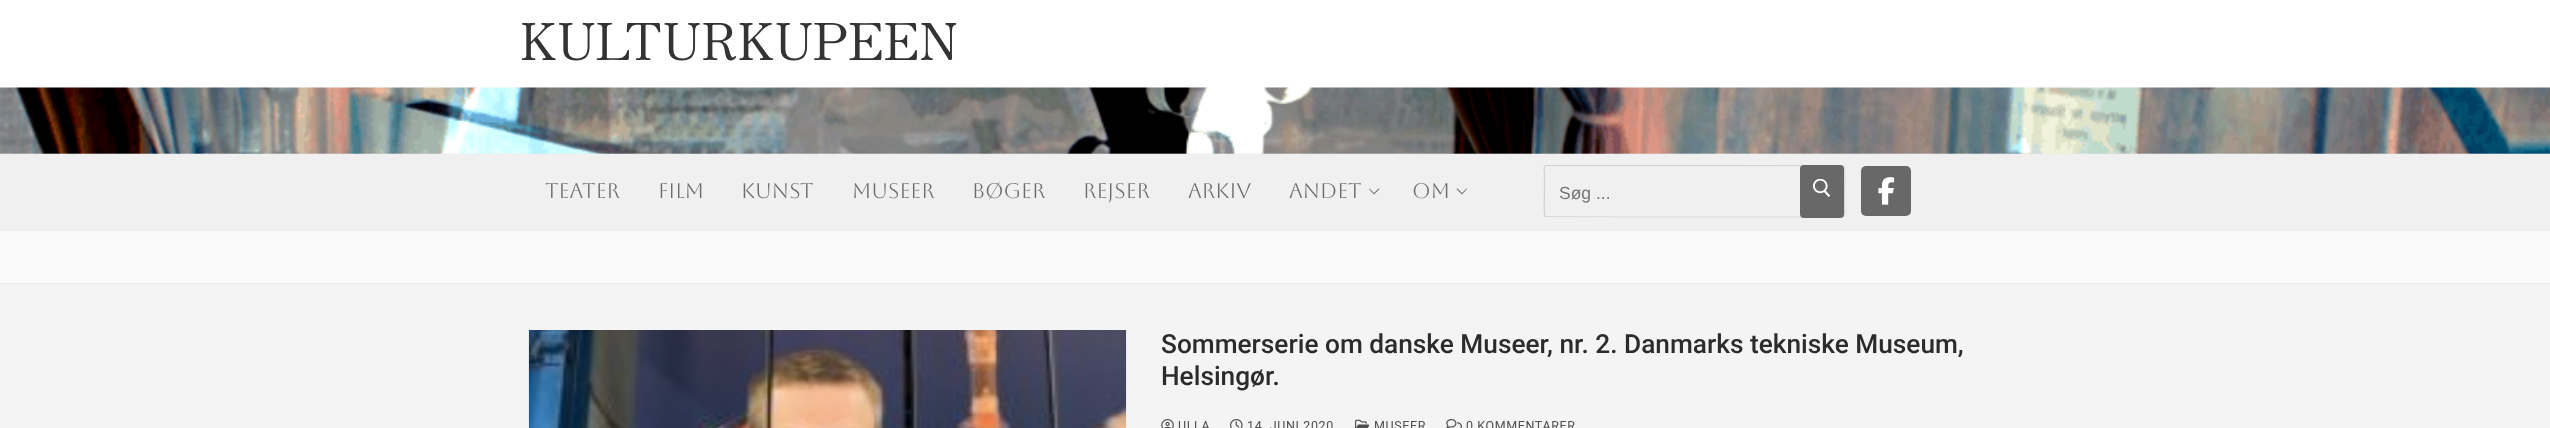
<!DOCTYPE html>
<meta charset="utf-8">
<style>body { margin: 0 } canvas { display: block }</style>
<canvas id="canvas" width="2550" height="428"></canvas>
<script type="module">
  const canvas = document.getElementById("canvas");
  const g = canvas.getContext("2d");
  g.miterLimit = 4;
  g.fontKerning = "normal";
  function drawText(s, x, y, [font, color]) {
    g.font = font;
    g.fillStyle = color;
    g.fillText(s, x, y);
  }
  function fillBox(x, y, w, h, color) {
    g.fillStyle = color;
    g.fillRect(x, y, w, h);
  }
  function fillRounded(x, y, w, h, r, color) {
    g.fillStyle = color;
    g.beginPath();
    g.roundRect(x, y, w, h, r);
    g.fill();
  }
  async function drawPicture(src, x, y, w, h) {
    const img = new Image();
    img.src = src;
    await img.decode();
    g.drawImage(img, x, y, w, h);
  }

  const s1 = ["51px Zen Old Mincho", "#333333"];
  const s2 = ["21px Aboreto", "#6C6C6C"];
  const s3 = ["17.5px Liberation Sans", "#757575"];
  const s4 = ["500 26.25px Roboto", "#2B2B2B"];
  const s5 = ["12.5px Roboto", "#4F4F4F"];

  fillBox(0, 0, 2550, 428, "#FFFFFF");
  g.letterSpacing = "0.5px";
  drawText("KULTURKUPEEN", 520, 60, s1);
  g.fillStyle = "#E1E5EA";
  g.filter = "blur(1px)";
  g.beginPath();
  g.rect(0, 89, 2550, 66);
  g.fill();
  g.filter = "none";
  await drawPicture("pic1.png", 0, 87, 2550, 67);
  fillBox(0, 229, 2550, 54, "#F9F9F9");
  g.fillStyle = "#E1E5EA";
  g.filter = "blur(1px)";
  g.beginPath();
  g.rect(0, 155, 2550, 75);
  g.fill();
  g.filter = "none";
  fillBox(0, 154, 2550, 75, "#F0F0F0");
  g.letterSpacing = "0px";
  drawText("TEATER", 545, 198, s2);
  drawText("FILM", 658, 198, s2);
  drawText("KUNST", 741, 198, s2);
  drawText("MUSEER", 852, 198, s2);
  drawText("BØGER", 972, 198, s2);
  drawText("REJSER", 1083, 198, s2);
  drawText("ARKIV", 1188, 198, s2);
  drawText("ANDET", 1289, 198, s2);
  g.beginPath();
  g.moveTo(1374, 194.5);
  g.lineTo(1369, 189);
  g.lineTo(1369.5, 188.5);
  g.lineTo(1374, 193);
  g.closePath();
  g.moveTo(1379.5, 189);
  g.lineTo(1374, 194.5);
  g.lineTo(1374, 193);
  g.lineTo(1378.5, 188.5);
  g.closePath();
  g.fill();
  drawText("OM", 1412, 198, s2);
  g.beginPath();
  g.moveTo(1462, 194.5);
  g.lineTo(1456.5, 189);
  g.lineTo(1457.5, 188.5);
  g.lineTo(1462, 193);
  g.closePath();
  g.moveTo(1467, 189);
  g.lineTo(1462, 194.5);
  g.lineTo(1462, 193);
  g.lineTo(1466.5, 188.5);
  g.closePath();
  g.fill();
  g.beginPath();
  g.moveTo(1844, 166);
  g.bezierCurveTo(1845.5, 168, 1844.5, 188, 1844.5, 191);
  g.lineTo(1844.5, 207);
  g.bezierCurveTo(1844.5, 211, 1846, 217, 1842.5, 217);
  g.lineTo(1645, 217);
  g.lineTo(1545, 216.5);
  g.strokeStyle = "#D9D9D9";
  g.lineWidth = 1.2;
  g.stroke();
  g.beginPath();
  g.moveTo(1545, 216.5);
  g.bezierCurveTo(1543.5, 214.5, 1544.5, 194.5, 1544.5, 191);
  g.lineTo(1544.5, 175.5);
  g.bezierCurveTo(1544.5, 171.5, 1543, 165.5, 1546, 165.5);
  g.lineTo(1744, 165.5);
  g.lineTo(1844, 166);
  g.strokeStyle = "rgba(85, 85, 85, 0.2)";
  g.stroke();
  drawText("Søg ...", 1559, 199, s3);
  fillRounded(1800, 165, 44, 53, 4, "#686868");
  await drawPicture("pic2.png", 1813, 179, 18, 18);
  fillRounded(1861, 166, 50, 50, 5, "#686868");
  await drawPicture("pic3.png", 1878, 177, 17, 28);
  fillBox(0, 283, 2550, 1, "#EAECEE");
  fillBox(0, 284, 2550, 144, "#F4F4F4");
  await drawPicture("pic4.png", 528, 330, 599, 98);
  drawText("Sommerserie om danske Museer, nr. 2. Danmarks tekniske Museum,", 1161, 353, s4);
  drawText("Helsingør.", 1161, 385, s4);
  await drawPicture("pic5.png", 1161, 419, 13, 9);
  g.letterSpacing = "0.6px";
  drawText("ULLA", 1178, 430, s5);
  await drawPicture("pic6.png", 1230, 419, 13, 9);
  drawText("14. JUNI 2020", 1247, 430, s5);
  await drawPicture("pic7.png", 1355, 419, 15, 9);
  drawText("MUSEER", 1374, 430, s5);
  await drawPicture("pic8.png", 1446, 419, 16, 9);
  drawText("0 KOMMENTARER", 1466, 430, s5);
</script>
